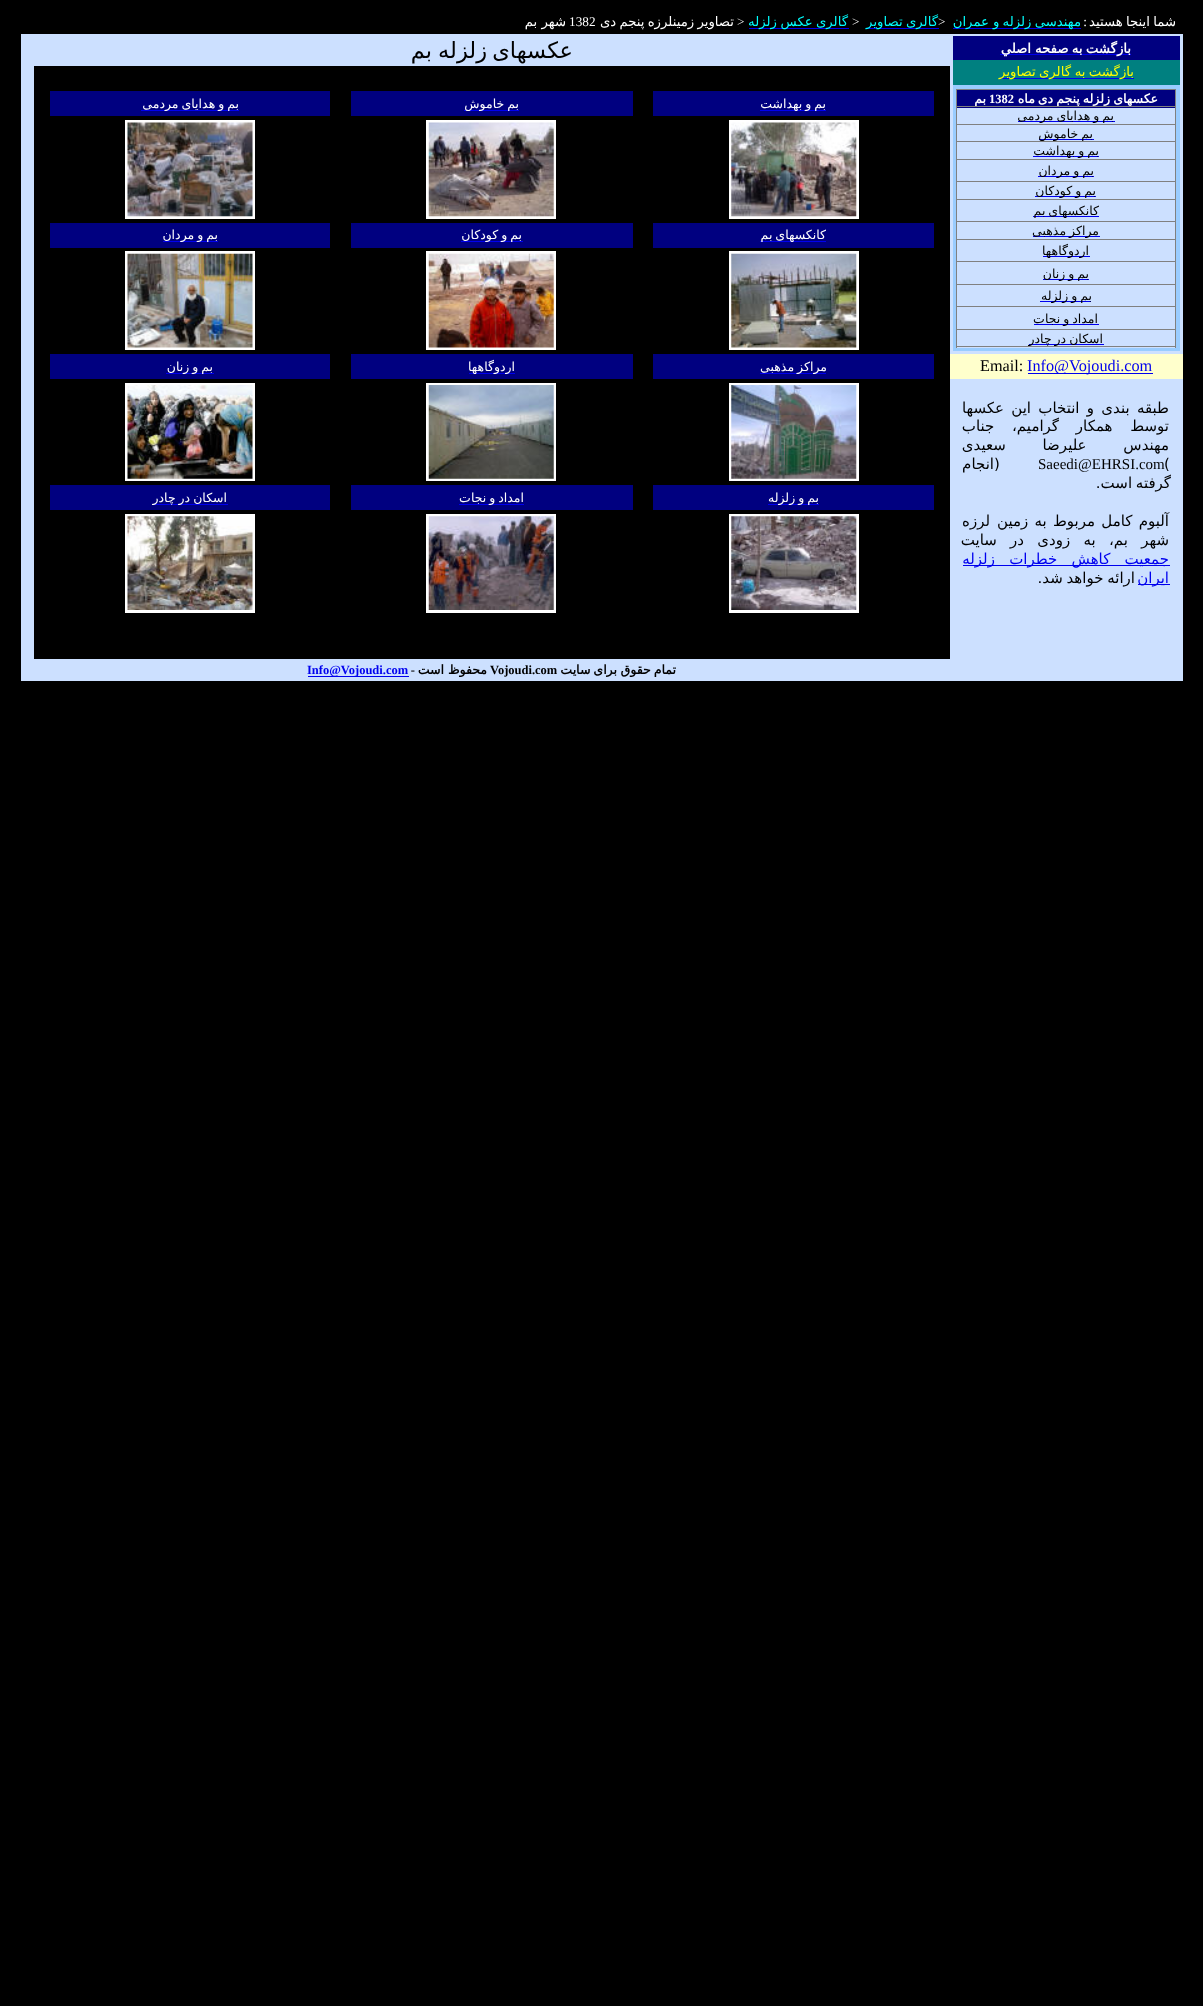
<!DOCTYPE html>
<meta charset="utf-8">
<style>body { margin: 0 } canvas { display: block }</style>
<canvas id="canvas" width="1203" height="2006"></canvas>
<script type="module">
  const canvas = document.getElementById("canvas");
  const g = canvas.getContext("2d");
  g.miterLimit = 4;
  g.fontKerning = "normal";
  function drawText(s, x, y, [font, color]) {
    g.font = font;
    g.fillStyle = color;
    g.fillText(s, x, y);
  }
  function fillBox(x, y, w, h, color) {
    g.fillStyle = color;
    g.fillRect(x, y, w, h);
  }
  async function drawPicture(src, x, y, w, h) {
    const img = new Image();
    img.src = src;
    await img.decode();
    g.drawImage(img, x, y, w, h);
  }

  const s1 = ["13.25px DejaVu Sans", "#FFFFFF"];
  const s2 = ["13.25px Liberation Serif", "#FFFFFF"];
  const s3 = ["13.25px DejaVu Sans", "#00FFFF"];
  const s4 = ["bold 13.25px DejaVu Sans", "#FFFFFF"];
  const s5 = ["13.25px DejaVu Sans", "#FFFF00"];
  const s6 = ["bold 12.5px DejaVu Sans", "#FFFFFF"];
  const s7 = ["bold 12.5px Liberation Serif", "#FFFFFF"];
  const s8 = ["12.5px DejaVu Sans", "#000000"];
  const s9 = ["16.25px Liberation Serif", "#0000EE"];
  const s10 = ["16.25px Liberation Serif", "#000000"];
  const s11 = ["15px DejaVu Sans", "#000000"];
  const s12 = ["15px Liberation Serif", "#000000"];
  const s13 = ["15px DejaVu Sans", "#0000EE"];
  const s14 = ["22.5px DejaVu Sans", "#000000"];
  const s15 = ["12.5px DejaVu Sans", "#FFFFFF"];
  const s16 = ["bold 12.5px DejaVu Sans", "#000000"];
  const s17 = ["bold 12.5px Liberation Serif", "#000000"];
  const s18 = ["bold 12.5px Liberation Serif", "#0000EE"];

  fillBox(0, 0, 1203, 2006, "#000000");
  g.wordSpacing = "-1px";
  g.direction = "rtl";
  drawText("شما اینجا هستید", 1176, 26, s1);
  g.wordSpacing = "0px";
  drawText(":", 1087, 26, s2);
  fillBox(953, 28, 128, 1, "#0000EE");
  g.wordSpacing = "-1px";
  drawText("مهندسی زلزله و", 1081, 26, s3);
  g.wordSpacing = "0px";
  drawText("عمران", 989, 26, s3);
  g.direction = "ltr";
  drawText(">", 938, 26, s2);
  fillBox(866, 28, 73, 1, "#0000EE");
  g.wordSpacing = "-1px";
  g.direction = "rtl";
  drawText("گالری تصاویر", 938, 26, s3);
  g.wordSpacing = "0px";
  g.direction = "ltr";
  drawText(">", 852, 26, s2);
  fillBox(749, 28, 100, 1, "#0000EE");
  g.wordSpacing = "-1px";
  g.direction = "rtl";
  drawText("گالری عكس", 848, 26, s3);
  g.wordSpacing = "0px";
  drawText("زلزله", 777, 26, s3);
  g.direction = "ltr";
  drawText(">", 737, 26, s2);
  g.wordSpacing = "-1px";
  g.direction = "rtl";
  drawText("تصاویر زمینلرزه پنجم دی", 734, 26, s1);
  g.wordSpacing = "0px";
  g.direction = "ltr";
  drawText("1382", 569, 26, s2);
  g.direction = "rtl";
  drawText("شهر بم", 566, 26, s1);
  fillBox(950, 34, 233, 647, "#CCE0FF");
  fillBox(953, 36, 227, 24, "#000080");
  fillBox(1000, 54, 131, 1, "#0000EE");
  g.wordSpacing = "-1px";
  drawText("بازگشت به صفحه", 1131, 53, s4);
  g.wordSpacing = "0px";
  drawText("اصلي", 1031, 53, s4);
  fillBox(953, 60, 227, 25, "#008080");
  fillBox(999, 78, 135, 1, "#0000EE");
  g.wordSpacing = "-1px";
  drawText("بازگشت به", 1134, 76, s5);
  drawText("گالری تصاویر", 1071, 76, s5);
  fillBox(953, 85, 227, 266, "#99CCFF");
  fillBox(957, 90, 218, 18, "#000080");
  fillBox(956, 89, 220, 1, "#808080");
  fillBox(1175, 89, 1, 259, "#808080");
  fillBox(957, 330, 218, 18, "#CCE0FF");
  fillBox(956, 346, 220, 1, "#808080");
  fillBox(956, 89, 1, 259, "#808080");
  fillBox(956, 106, 220, 1, "#808080");
  g.wordSpacing = "0px";
  drawText("عكسهای", 1158, 103, s6);
  g.wordSpacing = "-1px";
  drawText("زلزله پنجم دی ماه", 1110, 103, s6);
  g.wordSpacing = "0px";
  g.direction = "ltr";
  drawText("1382", 989, 103, s7);
  g.direction = "rtl";
  drawText("بم", 986, 103, s6);
  fillBox(957, 108, 218, 16, "#CCE0FF");
  fillBox(1018, 121, 97, 1, "#0000EE");
  g.wordSpacing = "-1px";
  drawText("بم و هدایای مردمی", 1114, 120, s8);
  fillBox(957, 125, 218, 34, "#CCE0FF");
  fillBox(956, 124, 220, 1, "#808080");
  fillBox(1039, 139, 55, 1, "#0000EE");
  fillBox(956, 141, 220, 1, "#808080");
  drawText("بم خاموش", 1093, 138, s8);
  fillBox(1033, 156, 66, 1, "#0000EE");
  drawText("بم و بهداشت", 1099, 155, s8);
  fillBox(957, 160, 218, 39, "#CCE0FF");
  fillBox(956, 159, 220, 1, "#808080");
  fillBox(1038, 176, 56, 1, "#0000EE");
  drawText("بم و مردان", 1094, 175, s8);
  fillBox(956, 181, 220, 1, "#808080");
  fillBox(1035, 196, 61, 1, "#0000EE");
  drawText("بم و کودکان", 1096, 195, s8);
  fillBox(957, 200, 218, 39, "#CCE0FF");
  fillBox(956, 199, 220, 1, "#808080");
  fillBox(1033, 216, 66, 1, "#0000EE");
  drawText("کانکسهای بم", 1099, 215, s8);
  fillBox(956, 221, 220, 1, "#808080");
  fillBox(1033, 236, 67, 1, "#0000EE");
  drawText("مراکز مذهبی", 1099, 235, s8);
  fillBox(957, 240, 218, 44, "#CCE0FF");
  fillBox(956, 239, 220, 1, "#808080");
  fillBox(1043, 256, 47, 1, "#0000EE");
  g.wordSpacing = "0px";
  drawText("اردوگاهها", 1089, 255, s8);
  fillBox(956, 261, 220, 1, "#808080");
  fillBox(1043, 279, 46, 1, "#0000EE");
  g.wordSpacing = "-1px";
  drawText("بم و زنان", 1089, 278, s8);
  fillBox(957, 285, 218, 44, "#CCE0FF");
  fillBox(956, 284, 220, 1, "#808080");
  fillBox(1040, 301, 51, 1, "#0000EE");
  drawText("بم و زلزله", 1092, 300, s8);
  fillBox(956, 306, 220, 1, "#808080");
  fillBox(1034, 324, 65, 1, "#0000EE");
  drawText("امداد و نجات", 1098, 323, s8);
  fillBox(956, 329, 220, 1, "#808080");
  fillBox(1029, 344, 75, 1, "#0000EE");
  drawText("اسکان در چادر", 1103, 343, s8);
  fillBox(950, 354, 233, 25, "#FFFFCC");
  fillBox(1028, 373, 125, 1, "#0000EE");
  g.wordSpacing = "0px";
  g.direction = "ltr";
  drawText("Info@Vojoudi.com", 1027, 371, s9);
  drawText("Email:", 980, 371, s10);
  g.wordSpacing = "2.5px";
  g.direction = "rtl";
  drawText("طبقه بندی و انتخاب این عكسها", 1169, 413, s11);
  g.wordSpacing = "13px";
  drawText("توسط همكار", 1169, 431, s11);
  drawText("گرامیم، جناب", 1059, 431, s11);
  g.wordSpacing = "32px";
  drawText("مهندس علیرضا سعیدی", 1169, 450, s11);
  g.wordSpacing = "0px";
  g.direction = "ltr";
  drawText("(", 1164, 469, s11);
  drawText("Saeedi@EHRSI.com", 1038, 469, s12);
  drawText(")", 994, 469, s11);
  g.direction = "rtl";
  drawText("انجام", 994, 469, s11);
  g.wordSpacing = "-1px";
  drawText("گرفته است.", 1171, 488, s11);
  g.wordSpacing = "1.5px";
  drawText("آلبوم كامل مربوط به زمین", 1169, 526, s11);
  g.wordSpacing = "0px";
  drawText("لرزه", 990, 526, s11);
  g.wordSpacing = "8.5px";
  drawText("شهر بم، به زودی در سایت", 1169, 545, s11);
  fillBox(963, 565, 207, 1, "#0000EE");
  g.wordSpacing = "9.5px";
  drawText("جمعیت كاهش خطرات زلزله", 1169, 564, s13);
  fillBox(1138, 584, 32, 1, "#0000EE");
  g.wordSpacing = "0px";
  drawText("ایران", 1169, 583, s13);
  g.wordSpacing = "-1px";
  drawText("ارائه خواهد شد.", 1135, 583, s11);
  fillBox(34, 34, 916, 32, "#CCE0FF");
  g.wordSpacing = "-2px";
  drawText("عكسهای زلزله", 573, 58, s14);
  g.wordSpacing = "0px";
  drawText("بم", 432, 58, s14);
  fillBox(653, 91, 281, 25, "#000080");
  fillBox(760, 110, 66, 1, "#0000EE");
  g.wordSpacing = "-1px";
  drawText("بم و بهداشت", 826, 108, s15);
  fillBox(351, 91, 282, 25, "#000080");
  fillBox(464, 110, 55, 1, "#0000EE");
  drawText("بم خاموش", 519, 108, s15);
  fillBox(50, 91, 280, 25, "#000080");
  fillBox(141, 110, 98, 1, "#0000EE");
  drawText("بم و هدایای مردمی", 239, 108, s15);
  g.strokeStyle = "#FFFFFF";
  g.lineWidth = 3;
  g.strokeRect(730.5, 121.5, 127, 96);
  await drawPicture("pic1.png", 731, 122, 126, 95);
  g.strokeRect(427.5, 121.5, 127, 96);
  await drawPicture("pic2.png", 428, 122, 126, 95);
  g.strokeRect(126.5, 121.5, 127, 96);
  await drawPicture("pic3.png", 127, 122, 126, 95);
  fillBox(653, 223, 281, 25, "#000080");
  fillBox(760, 241, 66, 1, "#0000EE");
  drawText("کانکسهای بم", 826, 239, s15);
  fillBox(351, 223, 282, 25, "#000080");
  fillBox(461, 241, 62, 1, "#0000EE");
  drawText("بم و کودکان", 522, 239, s15);
  fillBox(50, 223, 280, 25, "#000080");
  fillBox(163, 241, 55, 1, "#0000EE");
  drawText("بم و مردان", 218, 239, s15);
  g.strokeRect(730.5, 252.5, 127, 96);
  await drawPicture("pic4.png", 731, 253, 126, 95);
  g.strokeRect(427.5, 252.5, 127, 96);
  await drawPicture("pic5.png", 428, 253, 126, 95);
  g.strokeRect(126.5, 252.5, 127, 96);
  await drawPicture("pic6.png", 127, 253, 126, 95);
  fillBox(653, 354, 281, 25, "#000080");
  fillBox(760, 373, 66, 1, "#0000EE");
  drawText("مراکز مذهبی", 827, 371, s15);
  fillBox(351, 354, 282, 25, "#000080");
  fillBox(469, 373, 46, 1, "#0000EE");
  g.wordSpacing = "0px";
  drawText("اردوگاهها", 515, 371, s15);
  fillBox(50, 354, 280, 25, "#000080");
  fillBox(166, 373, 48, 1, "#0000EE");
  g.wordSpacing = "-1px";
  drawText("بم و زنان", 213, 371, s15);
  g.strokeRect(730.5, 384.5, 127, 95);
  await drawPicture("pic7.png", 731, 385, 126, 94);
  g.strokeRect(427.5, 384.5, 127, 95);
  await drawPicture("pic8.png", 428, 385, 126, 94);
  g.strokeRect(126.5, 384.5, 127, 95);
  await drawPicture("pic9.png", 127, 385, 126, 94);
  fillBox(653, 485, 281, 25, "#000080");
  fillBox(768, 504, 51, 1, "#0000EE");
  drawText("بم و زلزله", 819, 502, s15);
  fillBox(351, 485, 282, 25, "#000080");
  fillBox(459, 504, 65, 1, "#0000EE");
  drawText("امداد و نجات", 524, 502, s15);
  fillBox(50, 485, 280, 25, "#000080");
  fillBox(153, 504, 75, 1, "#0000EE");
  drawText("اسکان در چادر", 227, 502, s15);
  g.strokeRect(730.5, 515.5, 127, 96);
  await drawPicture("pic10.png", 731, 516, 126, 94);
  g.strokeRect(427.5, 515.5, 127, 96);
  await drawPicture("pic11.png", 428, 516, 126, 94);
  g.strokeRect(126.5, 515.5, 127, 96);
  await drawPicture("pic12.png", 127, 516, 126, 94);
  fillBox(21, 34, 13, 625, "#CCE0FF");
  fillBox(21, 659, 929, 22, "#CCE0FF");
  drawText("تمام حقوق", 676, 674, s16);
  drawText("برای سایت", 617, 674, s16);
  g.wordSpacing = "0px";
  g.direction = "ltr";
  drawText("Vojoudi.com", 490, 674, s17);
  g.direction = "rtl";
  drawText("محفوظ است", 487, 674, s16);
  drawText("-", 415, 674, s17);
  fillBox(308, 676, 101, 1, "#0000EE");
  g.direction = "ltr";
  drawText("Info@Vojoudi.com", 307, 674, s18);
</script>
